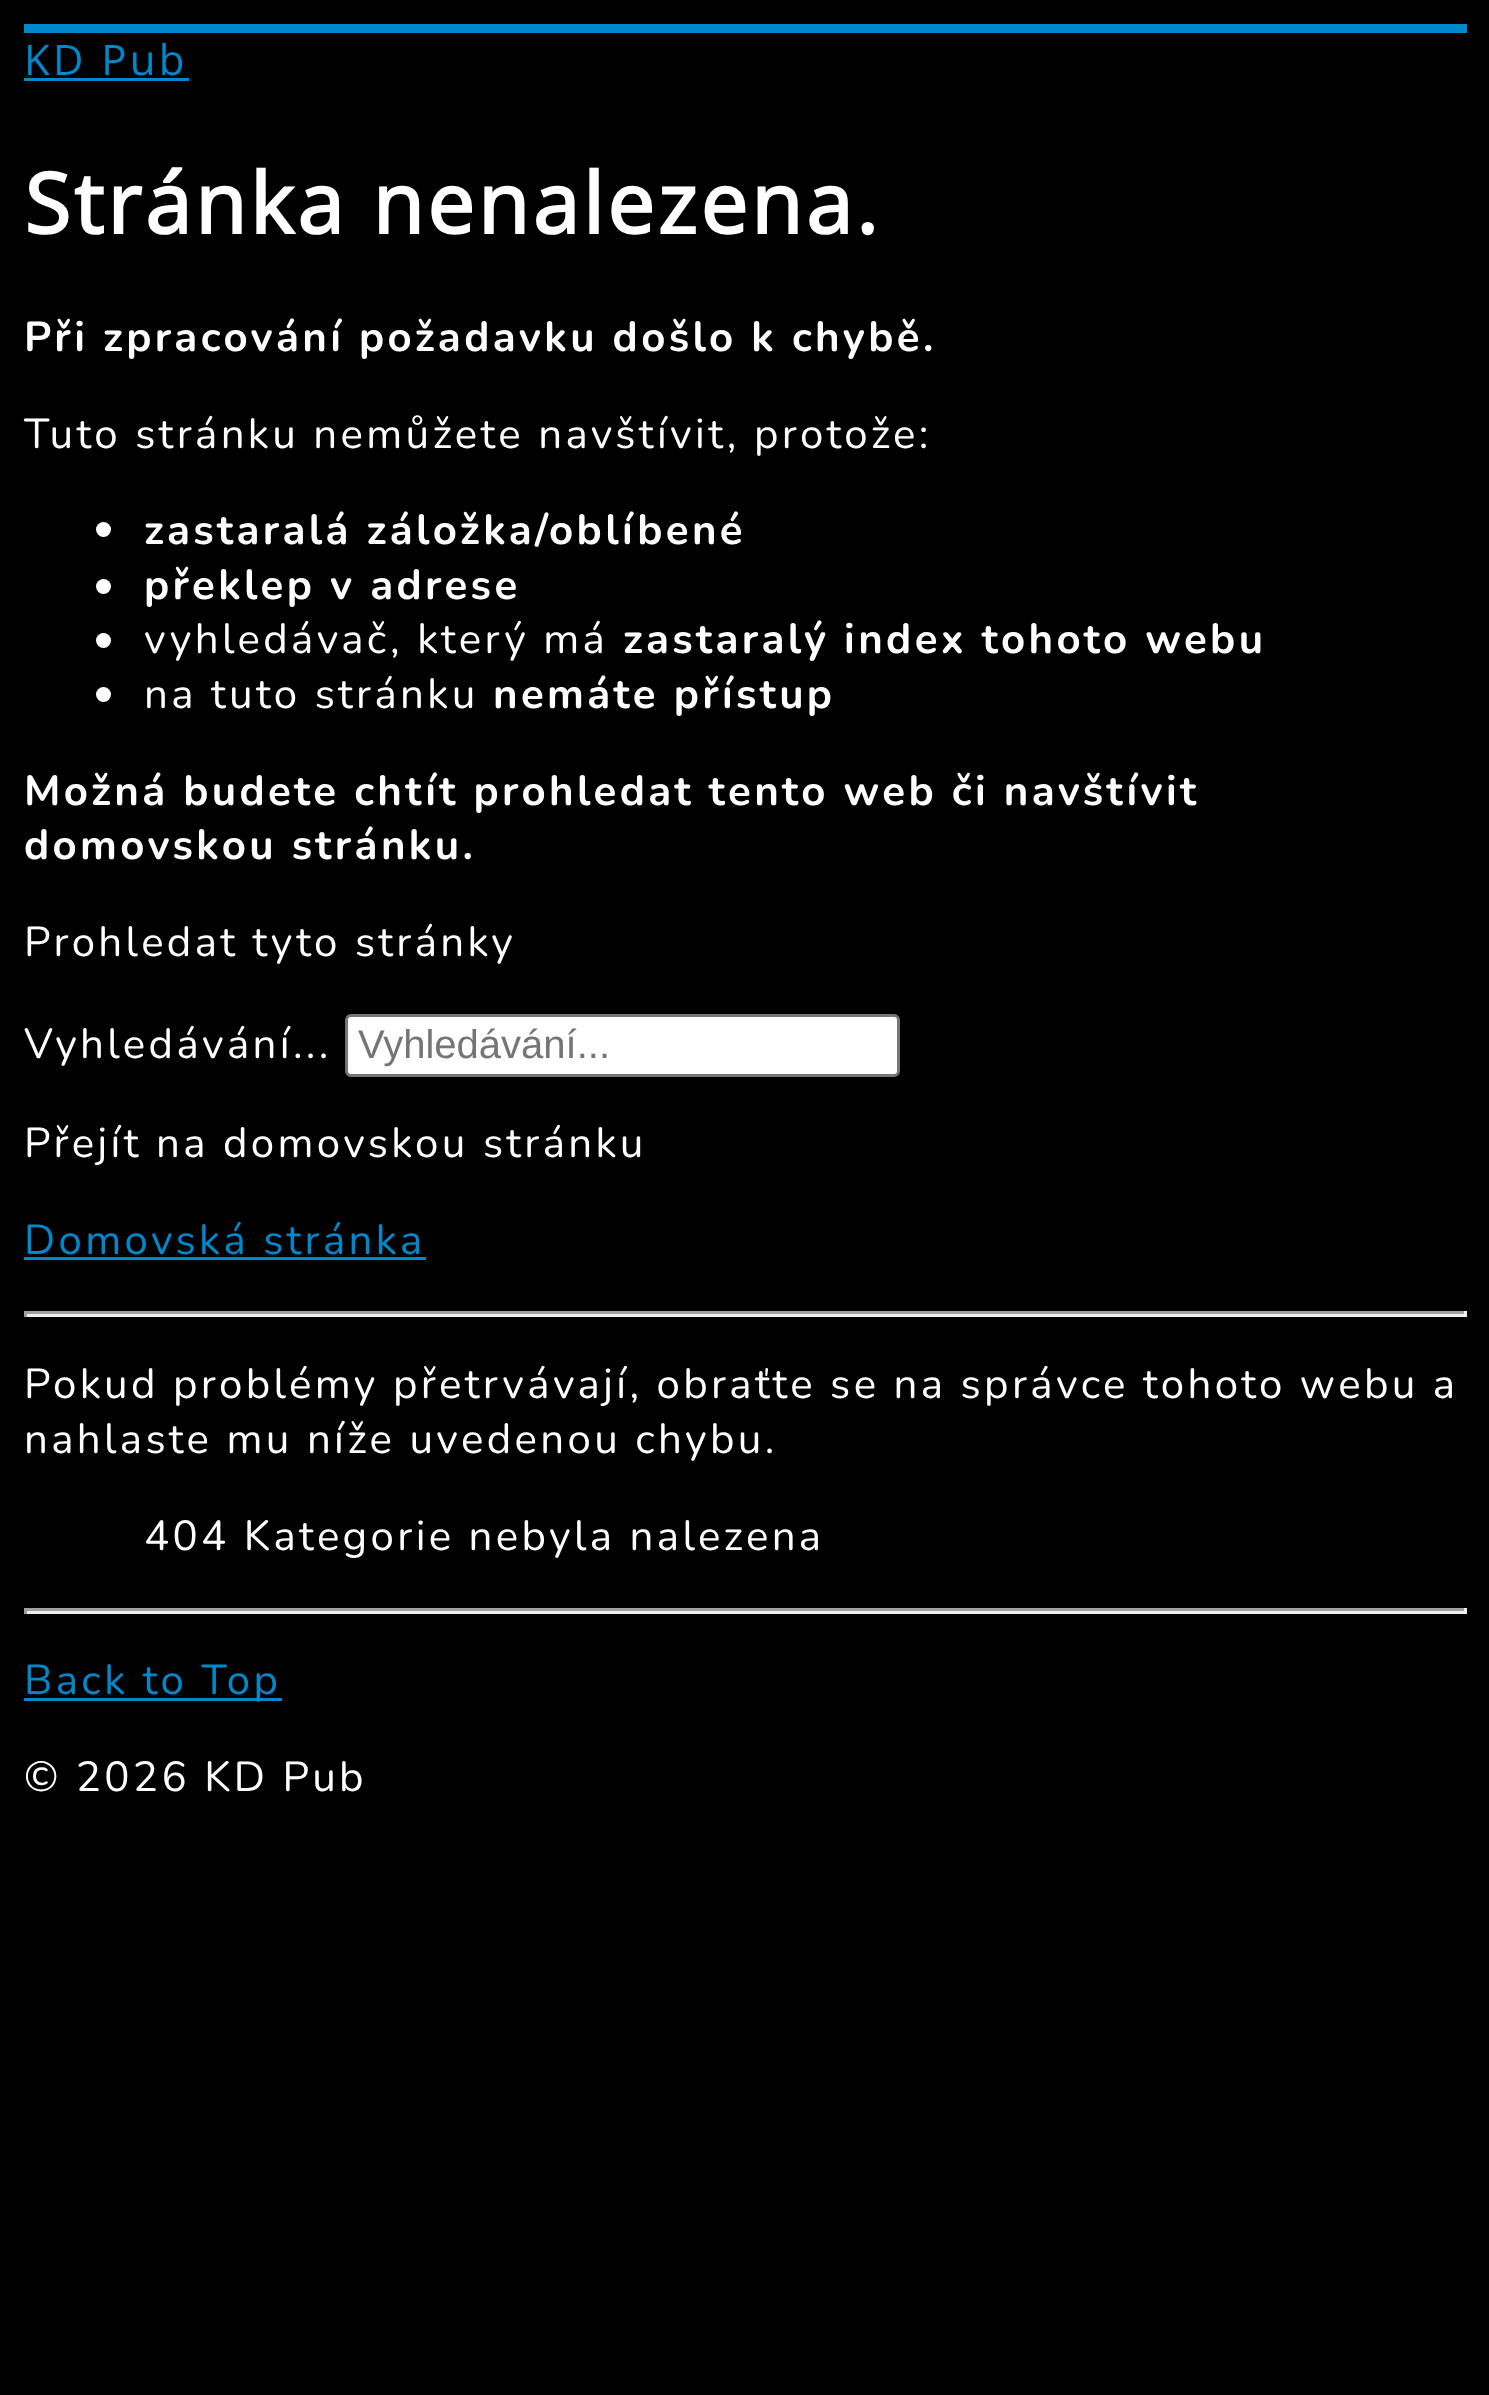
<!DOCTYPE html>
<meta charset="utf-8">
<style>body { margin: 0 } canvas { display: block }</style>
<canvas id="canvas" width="1489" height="2395"></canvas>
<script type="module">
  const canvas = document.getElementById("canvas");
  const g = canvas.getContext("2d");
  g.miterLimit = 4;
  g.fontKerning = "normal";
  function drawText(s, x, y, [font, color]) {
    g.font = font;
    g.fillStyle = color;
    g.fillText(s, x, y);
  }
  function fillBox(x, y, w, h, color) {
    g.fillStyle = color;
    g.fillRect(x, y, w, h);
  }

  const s1 = ["42px Open Sans", "#0088CC"];
  const s2 = ["bold 84px Open Sans", "#FFFFFF"];
  const s3 = ["bold 42px Nunito", "#FFFFFF"];
  const s4 = ["42px Nunito", "#FFFFFF"];
  const s5 = ["40px Liberation Sans", "#757575"];
  const s6 = ["42px Nunito", "#0088CC"];

  fillBox(0, 0, 1489, 2395, "#000000");
  fillBox(24, 24, 1443, 9, "#0088CC");
  g.letterSpacing = "3.35px";
  drawText("KD Pub", 24, 75, s1);
  fillBox(24, 78, 165, 3, "#0088CC");
  drawText("Stránka nenalezena.", 24, 234, s2);
  drawText("Při zpracování požadavku došlo k chybě.", 24, 351, s3);
  drawText("Tuto stránku nemůžete navštívit, protože:", 24, 448, s4);
  g.beginPath();
  g.arc(103.5, 529.5, 7.5, 0, Math.PI * 2);
  g.fill();
  drawText("zastaralá záložka/oblíbené", 144, 544, s3);
  g.beginPath();
  g.arc(103.5, 586.5, 7.5, 0, Math.PI * 2);
  g.fill();
  drawText("překlep v adrese", 144, 599, s3);
  g.beginPath();
  g.arc(103.5, 640.5, 7.5, 0, Math.PI * 2);
  g.fill();
  drawText("vyhledávač, který má", 144, 653, s4);
  drawText("zastaralý index tohoto webu", 623, 653, s3);
  g.beginPath();
  g.arc(103.5, 694.5, 7.5, 0, Math.PI * 2);
  g.fill();
  drawText("na tuto stránku", 144, 708, s4);
  drawText("nemáte přístup", 493, 708, s3);
  drawText("Možná budete chtít prohledat tento web či navštívit", 24, 805, s3);
  drawText("domovskou stránku.", 24, 859, s3);
  drawText("Prohledat tyto stránky", 24, 956, s4);
  drawText("Vyhledávání...", 24, 1058, s4);
  g.beginPath();
  g.roundRect(346.5, 1015.5, 552, 60, 4.5);
  g.fill();
  g.strokeStyle = "#767676";
  g.lineWidth = 3;
  g.stroke();
  g.letterSpacing = "0px";
  drawText("Vyhledávání...", 358, 1058, s5);
  g.letterSpacing = "3.35px";
  drawText("Přejít na domovskou stránku", 24, 1157, s4);
  drawText("Domovská stránka", 24, 1254, s6);
  fillBox(24, 1257, 402, 3, "#0088CC");
  fillBox(24, 1311, 1443, 3, "#9F9F9F");
  fillBox(1464, 1311, 3, 6, "#EEEEEE");
  fillBox(24, 1314, 1443, 3, "#EEEEEE");
  fillBox(24, 1311, 3, 6, "#9F9F9F");
  drawText("Pokud problémy přetrvávají, obraťte se na správce tohoto webu a", 24, 1398, s4);
  drawText("nahlaste mu níže uvedenou chybu.", 24, 1453, s4);
  drawText("404 Kategorie nebyla nalezena", 144, 1550, s4);
  fillBox(24, 1608, 1443, 3, "#9F9F9F");
  fillBox(1464, 1608, 3, 6, "#EEEEEE");
  fillBox(24, 1611, 1443, 3, "#EEEEEE");
  fillBox(24, 1608, 3, 6, "#9F9F9F");
  fillBox(24, 1698, 258, 3, "#0088CC");
  drawText("Back to Top", 24, 1694, s6);
  drawText("© 2026 KD Pub", 24, 1791, s4);
</script>
